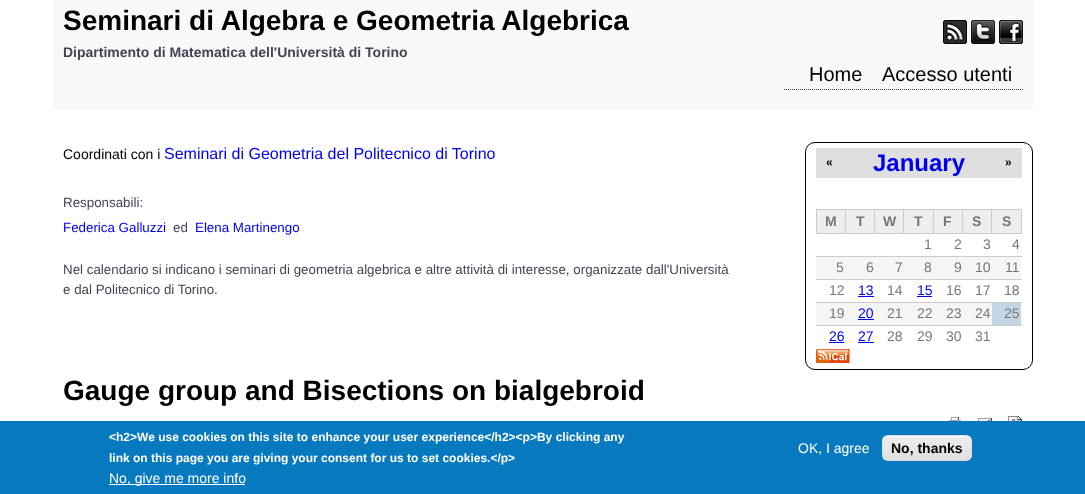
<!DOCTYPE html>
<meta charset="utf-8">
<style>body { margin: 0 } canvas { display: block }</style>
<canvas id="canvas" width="1085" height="494"></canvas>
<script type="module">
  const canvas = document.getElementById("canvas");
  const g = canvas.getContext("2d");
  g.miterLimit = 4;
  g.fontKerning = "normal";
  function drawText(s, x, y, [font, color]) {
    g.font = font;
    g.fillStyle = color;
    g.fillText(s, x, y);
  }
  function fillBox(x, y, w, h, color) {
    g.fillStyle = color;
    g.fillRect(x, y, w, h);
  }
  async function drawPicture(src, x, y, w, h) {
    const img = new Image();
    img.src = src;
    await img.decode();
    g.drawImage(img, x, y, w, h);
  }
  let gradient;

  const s1 = ["bold 28px Liberation Sans", "#000000"];
  const s2 = ["bold 14px Liberation Sans", "#444455"];
  const s3 = ["20px Liberation Sans", "#000000"];
  const s4 = ["14px Liberation Sans", "#000000"];
  const s5 = ["16px Liberation Sans", "#0000EE"];
  const s6 = ["bold 24px Liberation Sans", "#0000EE"];
  const s7 = ["bold 12px Liberation Sans", "#000000"];
  const s8 = ["bold 14px Liberation Sans", "#777777"];
  const s9 = ["14px Liberation Sans", "#777777"];
  const s10 = ["14px Liberation Sans", "#0000EE"];
  const s11 = ["13.35px Liberation Sans", "#444455"];
  const s12 = ["13.35px Liberation Sans", "#0000EE"];
  const s13 = ["bold 12px Liberation Sans", "#FFFFFF"];
  const s14 = ["14px Liberation Sans", "#FFFFFF"];
  const s15 = ["bold 14px Liberation Sans", "#000000"];

  fillBox(0, 0, 1085, 494, "#FFFFFF");
  fillBox(53, 0, 980, 110, "#F8F8F8");
  drawText("Seminari di Algebra e Geometria Algebrica", 63, 30, s1);
  drawText("Dipartimento di Matematica dell'Università di Torino", 63, 57, s2);
  await drawPicture("pic1.png", 943, 20, 24, 24);
  await drawPicture("pic2.png", 971, 20, 24, 24);
  await drawPicture("pic3.png", 999, 20, 24, 24);
  g.beginPath();
  g.moveTo(784, 89.5);
  g.lineTo(1023, 89.5);
  g.strokeStyle = "#444455";
  g.setLineDash([1, 1]);
  g.stroke();
  drawText("Home", 809, 81, s3);
  drawText("Accesso utenti", 882, 81, s3);
  drawText("Coordinati con i", 63, 159, s4);
  drawText("Seminari di Geometria del Politecnico di Torino", 164, 159, s5);
  g.beginPath();
  g.roundRect(805.5, 142.5, 227, 227, 9.5);
  g.strokeStyle = "#000000";
  g.setLineDash([]);
  g.stroke();
  fillBox(816, 148, 206, 30, "#DFDFDF");
  drawText("January", 873, 171, s6);
  drawText("«", 826, 166, s7);
  drawText("»", 1005, 166, s7);
  fillBox(817, 210, 28, 23, "#EEEEEE");
  fillBox(991, 209, 31, 1, "#CCCCCC");
  fillBox(816, 233, 206, 1, "#CCCCCC");
  fillBox(991, 209, 1, 25, "#CCCCCC");
  fillBox(962, 209, 30, 1, "#CCCCCC");
  fillBox(962, 209, 1, 25, "#CCCCCC");
  fillBox(933, 209, 30, 1, "#CCCCCC");
  fillBox(933, 209, 1, 25, "#CCCCCC");
  fillBox(903, 209, 31, 1, "#CCCCCC");
  fillBox(903, 209, 1, 25, "#CCCCCC");
  fillBox(874, 209, 30, 1, "#CCCCCC");
  fillBox(874, 209, 1, 25, "#CCCCCC");
  fillBox(845, 209, 30, 1, "#CCCCCC");
  fillBox(845, 209, 1, 25, "#CCCCCC");
  fillBox(816, 209, 30, 1, "#CCCCCC");
  fillBox(816, 209, 1, 25, "#CCCCCC");
  drawText("M", 825, 226, s8);
  fillBox(846, 210, 28, 23, "#EEEEEE");
  drawText("T", 856, 226, s8);
  fillBox(875, 210, 28, 23, "#EEEEEE");
  drawText("W", 883, 226, s8);
  fillBox(904, 210, 29, 23, "#EEEEEE");
  drawText("T", 914, 226, s8);
  fillBox(934, 210, 28, 23, "#EEEEEE");
  drawText("F", 943, 226, s8);
  fillBox(963, 210, 28, 23, "#EEEEEE");
  drawText("S", 972, 226, s8);
  fillBox(992, 210, 29, 23, "#EEEEEE");
  fillBox(1021, 209, 1, 25, "#CCCCCC");
  drawText("S", 1002, 226, s8);
  drawText("1", 924, 249, s9);
  drawText("2", 954, 249, s9);
  drawText("3", 983, 249, s9);
  drawText("4", 1012, 249, s9);
  fillBox(816, 257, 205, 22, "#F5F5F5");
  fillBox(816, 256, 206, 1, "#CCCCCC");
  drawText("5", 836, 272, s9);
  drawText("6", 866, 272, s9);
  drawText("7", 895, 272, s9);
  drawText("8", 924, 272, s9);
  drawText("9", 954, 272, s9);
  drawText("10", 975, 272, s9);
  drawText("11", 1005, 272, s9);
  fillBox(816, 279, 206, 1, "#CCCCCC");
  drawText("12", 829, 295, s9);
  drawText("13", 858, 295, s10);
  fillBox(858, 296, 16, 1, "#0000EE");
  drawText("14", 887, 295, s9);
  drawText("15", 917, 295, s10);
  fillBox(917, 296, 15, 1, "#0000EE");
  drawText("16", 946, 295, s9);
  drawText("17", 975, 295, s9);
  drawText("18", 1004, 295, s9);
  fillBox(816, 303, 176, 22, "#F5F5F5");
  fillBox(816, 302, 206, 1, "#CCCCCC");
  drawText("19", 829, 318, s9);
  drawText("20", 858, 318, s10);
  fillBox(858, 319, 16, 1, "#0000EE");
  drawText("21", 887, 318, s9);
  drawText("22", 917, 318, s9);
  drawText("23", 946, 318, s9);
  drawText("24", 975, 318, s9);
  fillBox(992, 303, 29, 22, "#C3D6E4");
  drawText("25", 1004, 318, s9);
  fillBox(816, 325, 206, 1, "#CCCCCC");
  drawText("26", 829, 341, s10);
  fillBox(829, 342, 15, 1, "#0000EE");
  drawText("27", 858, 341, s10);
  fillBox(858, 342, 16, 1, "#0000EE");
  drawText("28", 887, 341, s9);
  drawText("29", 917, 341, s9);
  drawText("30", 946, 341, s9);
  drawText("31", 975, 341, s9);
  await drawPicture("pic4.png", 816, 349, 34, 14);
  drawText("Responsabili:", 63, 207, s11);
  drawText("Federica Galluzzi", 63, 232, s12);
  drawText("ed", 173, 232, s11);
  drawText("Elena Martinengo", 195, 232, s12);
  drawText("Nel calendario si indicano i seminari di geometria algebrica e altre attività di interesse, organizzate dall'Università", 63, 274, s11);
  drawText("e dal Politecnico di Torino.", 63, 294, s11);
  drawText("Gauge group and Bisections on bialgebroid", 63, 400, s1);
  await drawPicture("pic5.png", 949, 417, 12, 4);
  await drawPicture("pic6.png", 978, 418, 14, 3);
  await drawPicture("pic7.png", 1008, 416, 14, 5);
  fillBox(0, 421, 1085, 73, "#0779BF");
  drawText("<h2>We use cookies on this site to enhance your user experience<\/h2><p>By clicking any", 109, 441, s13);
  drawText("link on this page you are giving your consent for us to set cookies.<\/p>", 109, 462, s13);
  fillBox(109, 484, 136, 1, "#FFFFFF");
  drawText("No, give me more info", 109, 483, s14);
  drawText("OK, I agree", 798, 453, s14);
  g.save();
  g.beginPath();
  g.roundRect(882, 435, 90, 26, 6);
  g.clip();
  gradient = g.createLinearGradient(927, 436, 927, 460);
  gradient.addColorStop(0.05, "#EDEDED");
  gradient.addColorStop(1, "#DFDFDF");
  g.fillStyle = gradient;
  g.fillRect(882, 436, 90, 24);
  g.restore();
  g.beginPath();
  g.moveTo(888, 437);
  g.lineTo(966, 437);
  g.bezierCurveTo(969, 437, 971, 439, 971, 442);
  g.bezierCurveTo(971, 433, 959, 436, 953, 436);
  g.lineTo(901, 436);
  g.bezierCurveTo(895, 436, 883, 433, 883, 442);
  g.bezierCurveTo(883, 439, 885, 437, 888, 437);
  g.closePath();
  g.fill();
  g.beginPath();
  g.roundRect(882.5, 435.5, 89, 25, 5.5);
  g.strokeStyle = "#DCDCDC";
  g.stroke();
  drawText("No, thanks", 891, 453, s15);
</script>
